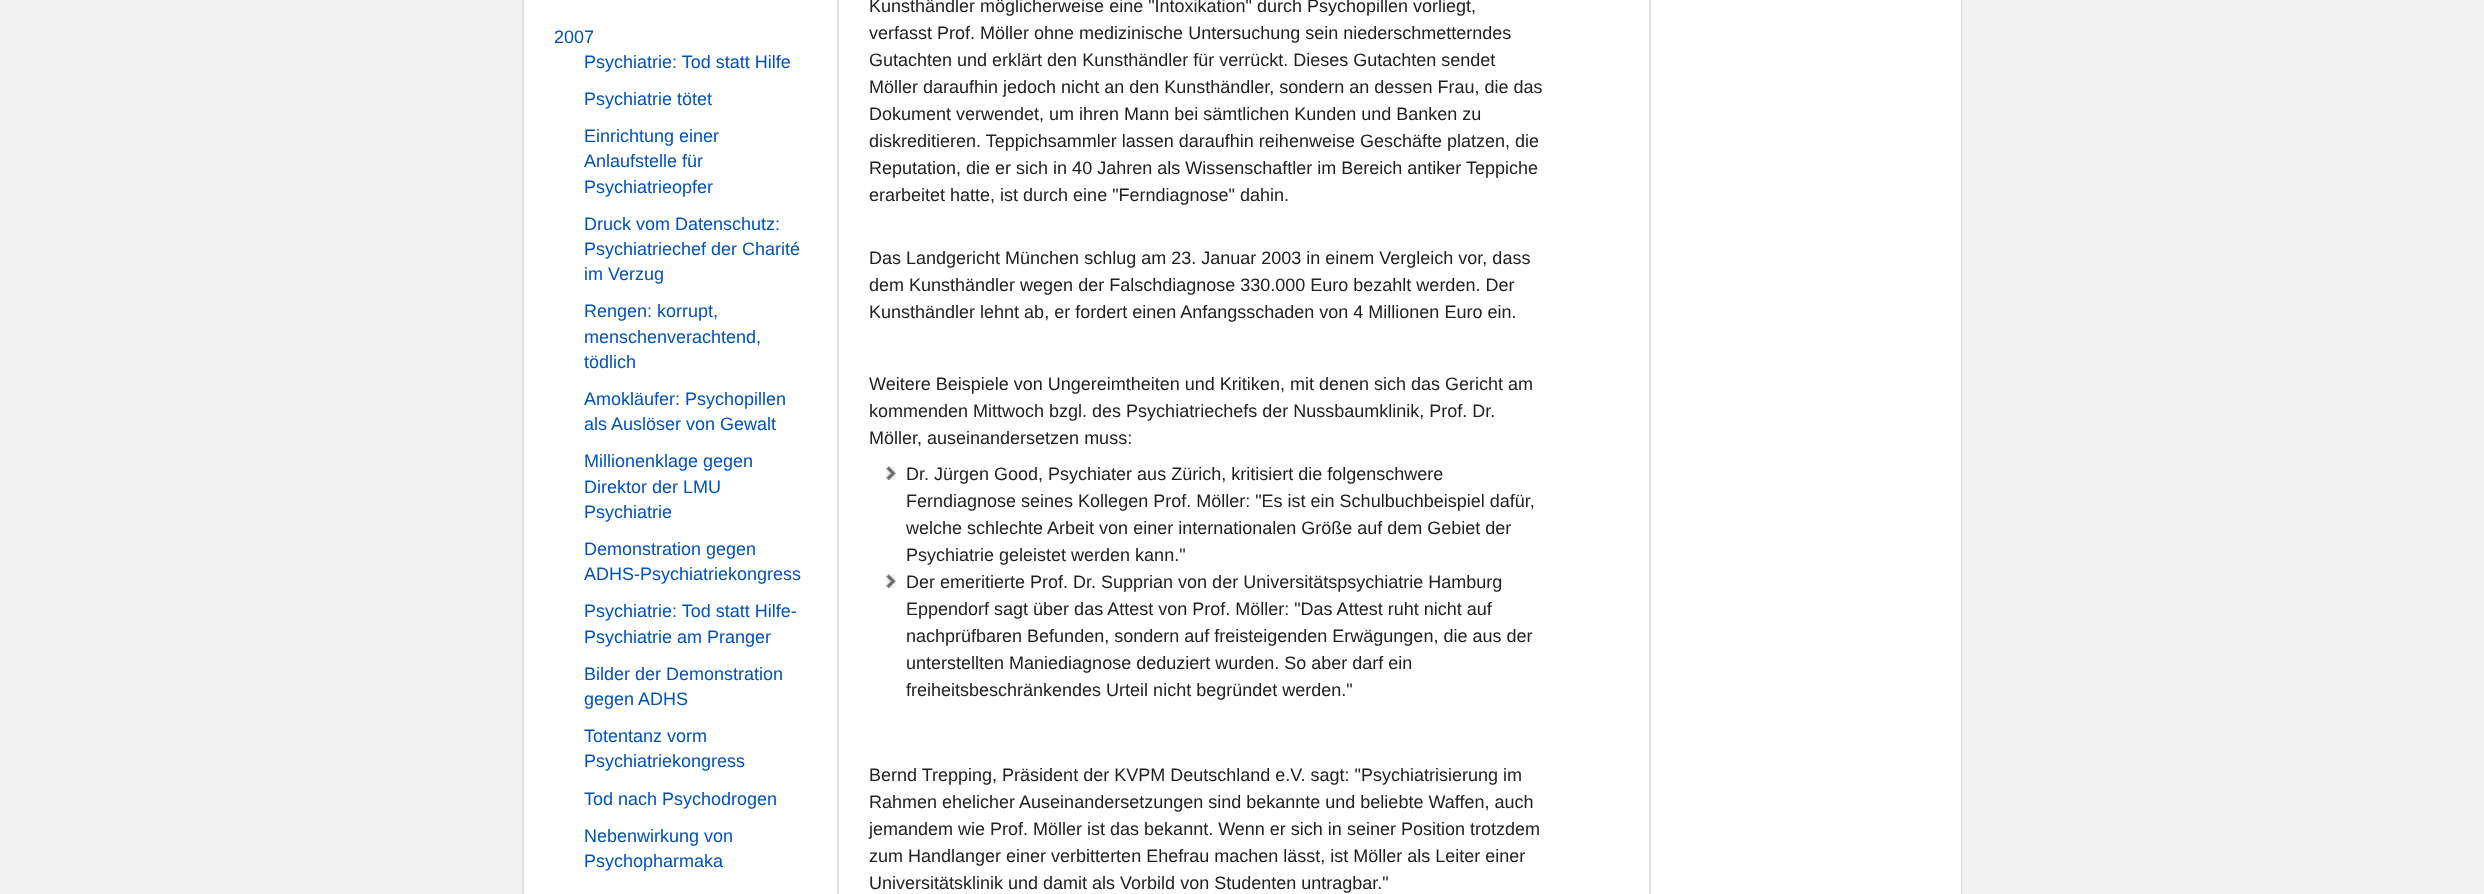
<!DOCTYPE html>
<meta charset="utf-8">
<style>body { margin: 0 } canvas { display: block }</style>
<canvas id="canvas" width="2484" height="894"></canvas>
<script type="module">
  const canvas = document.getElementById("canvas");
  const g = canvas.getContext("2d");
  g.miterLimit = 4;
  g.fontKerning = "normal";
  function drawText(s, x, y, [font, color]) {
    g.font = font;
    g.fillStyle = color;
    g.fillText(s, x, y);
  }
  function fillBox(x, y, w, h, color) {
    g.fillStyle = color;
    g.fillRect(x, y, w, h);
  }
  async function drawPicture(src, x, y, w, h) {
    const img = new Image();
    img.src = src;
    await img.decode();
    g.drawImage(img, x, y, w, h);
  }

  const s1 = ["18px Liberation Sans", "#0152B9"];
  const s2 = ["18px Liberation Sans", "#212121"];

  fillBox(0, 0, 2484, 894, "#F2F2F2");
  fillBox(522, 0, 1440, 894, "#DADFE8");
  fillBox(524, 0, 313, 894, "#FFFFFF");
  drawText("2007", 554, 43, s1);
  drawText("Psychiatrie: Tod statt Hilfe", 584, 68, s1);
  drawText("Psychiatrie tötet", 584, 105, s1);
  drawText("Einrichtung einer", 584, 142, s1);
  drawText("Anlaufstelle für", 584, 167, s1);
  drawText("Psychiatrieopfer", 584, 193, s1);
  drawText("Druck vom Datenschutz:", 584, 230, s1);
  drawText("Psychiatriechef der Charité", 584, 255, s1);
  drawText("im Verzug", 584, 280, s1);
  drawText("Rengen: korrupt,", 584, 317, s1);
  drawText("menschenverachtend,", 584, 343, s1);
  drawText("tödlich", 584, 368, s1);
  drawText("Amokläufer: Psychopillen", 584, 405, s1);
  drawText("als Auslöser von Gewalt", 584, 430, s1);
  drawText("Millionenklage gegen", 584, 467, s1);
  drawText("Direktor der LMU", 584, 493, s1);
  drawText("Psychiatrie", 584, 518, s1);
  drawText("Demonstration gegen", 584, 555, s1);
  drawText("ADHS-Psychiatriekongress", 584, 580, s1);
  drawText("Psychiatrie: Tod statt Hilfe-", 584, 617, s1);
  drawText("Psychiatrie am Pranger", 584, 643, s1);
  drawText("Bilder der Demonstration", 584, 680, s1);
  drawText("gegen ADHS", 584, 705, s1);
  drawText("Totentanz vorm", 584, 742, s1);
  drawText("Psychiatriekongress", 584, 767, s1);
  drawText("Tod nach Psychodrogen", 584, 805, s1);
  drawText("Nebenwirkung von", 584, 842, s1);
  drawText("Psychopharmaka", 584, 867, s1);
  fillBox(839, 0, 810, 894, "#FFFFFF");
  drawText("Kunsthändler möglicherweise eine \"Intoxikation\" durch Psychopillen vorliegt,", 869, 12, s2);
  drawText("verfasst Prof. Möller ohne medizinische Untersuchung sein niederschmetterndes", 869, 39, s2);
  drawText("Gutachten und erklärt den Kunsthändler für verrückt. Dieses Gutachten sendet", 869, 66, s2);
  drawText("Möller daraufhin jedoch nicht an den Kunsthändler, sondern an dessen Frau, die das", 869, 93, s2);
  drawText("Dokument verwendet, um ihren Mann bei sämtlichen Kunden und Banken zu", 869, 120, s2);
  drawText("diskreditieren. Teppichsammler lassen daraufhin reihenweise Geschäfte platzen, die", 869, 147, s2);
  drawText("Reputation, die er sich in 40 Jahren als Wissenschaftler im Bereich antiker Teppiche", 869, 174, s2);
  drawText("erarbeitet hatte, ist durch eine \"Ferndiagnose\" dahin.", 869, 201, s2);
  drawText("Das Landgericht München schlug am 23. Januar 2003 in einem Vergleich vor, dass", 869, 264, s2);
  drawText("dem Kunsthändler wegen der Falschdiagnose 330.000 Euro bezahlt werden. Der", 869, 291, s2);
  drawText("Kunsthändler lehnt ab, er fordert einen Anfangsschaden von 4 Millionen Euro ein.", 869, 318, s2);
  drawText("Weitere Beispiele von Ungereimtheiten und Kritiken, mit denen sich das Gericht am", 869, 390, s2);
  drawText("kommenden Mittwoch bzgl. des Psychiatriechefs der Nussbaumklinik, Prof. Dr.", 869, 417, s2);
  drawText("Möller, auseinandersetzen muss:", 869, 444, s2);
  await drawPicture("pic1.png", 886, 466, 10, 14);
  drawText("Dr. Jürgen Good, Psychiater aus Zürich, kritisiert die folgenschwere", 906, 480, s2);
  drawText("Ferndiagnose seines Kollegen Prof. Möller: \"Es ist ein Schulbuchbeispiel dafür,", 906, 507, s2);
  drawText("welche schlechte Arbeit von einer internationalen Größe auf dem Gebiet der", 906, 534, s2);
  drawText("Psychiatrie geleistet werden kann.\"", 906, 561, s2);
  await drawPicture("pic1.png", 886, 574, 10, 14);
  drawText("Der emeritierte Prof. Dr. Supprian von der Universitätspsychiatrie Hamburg", 906, 588, s2);
  drawText("Eppendorf sagt über das Attest von Prof. Möller: \"Das Attest ruht nicht auf", 906, 615, s2);
  drawText("nachprüfbaren Befunden, sondern auf freisteigenden Erwägungen, die aus der", 906, 642, s2);
  drawText("unterstellten Maniediagnose deduziert wurden. So aber darf ein", 906, 669, s2);
  drawText("freiheitsbeschränkendes Urteil nicht begründet werden.\"", 906, 696, s2);
  drawText("Bernd Trepping, Präsident der KVPM Deutschland e.V. sagt: \"Psychiatrisierung im", 869, 781, s2);
  drawText("Rahmen ehelicher Auseinandersetzungen sind bekannte und beliebte Waffen, auch", 869, 808, s2);
  drawText("jemandem wie Prof. Möller ist das bekannt. Wenn er sich in seiner Position trotzdem", 869, 835, s2);
  drawText("zum Handlanger einer verbitterten Ehefrau machen lässt, ist Möller als Leiter einer", 869, 862, s2);
  drawText("Universitätsklinik und damit als Vorbild von Studenten untragbar.\"", 869, 889, s2);
  fillBox(1651, 0, 310, 894, "#FFFFFF");
</script>
